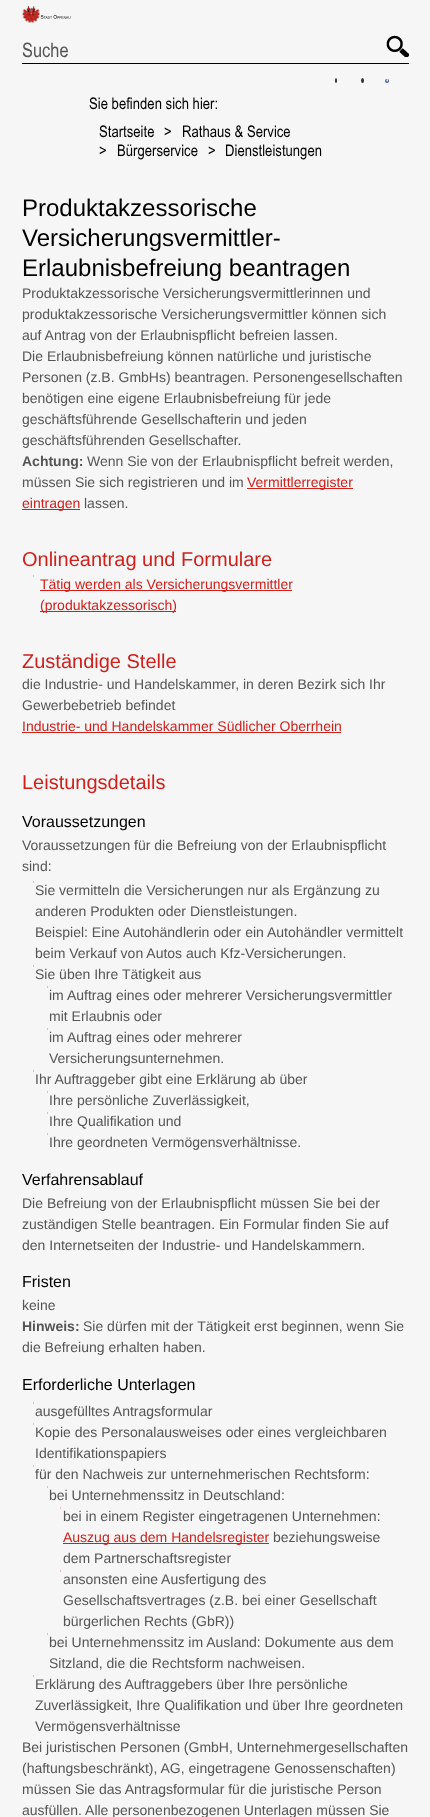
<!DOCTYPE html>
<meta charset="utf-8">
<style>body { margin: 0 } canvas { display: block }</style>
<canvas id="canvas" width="430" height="1817"></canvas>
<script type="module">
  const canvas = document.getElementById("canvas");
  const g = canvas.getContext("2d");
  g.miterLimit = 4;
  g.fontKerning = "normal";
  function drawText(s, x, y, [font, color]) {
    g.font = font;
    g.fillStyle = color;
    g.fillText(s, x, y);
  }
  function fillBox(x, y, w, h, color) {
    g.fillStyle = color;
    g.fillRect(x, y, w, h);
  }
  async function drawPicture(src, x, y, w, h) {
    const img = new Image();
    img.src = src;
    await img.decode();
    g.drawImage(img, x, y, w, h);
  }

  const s1 = ["20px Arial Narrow", "#555555"];
  const s2 = ["16px Arial Narrow", "#000000"];
  const s3 = ["24px Liberation Sans", "#000000"];
  const s4 = ["14px Liberation Sans", "#555555"];
  const s5 = ["bold 14px Liberation Sans", "#555555"];
  const s6 = ["14px Liberation Sans", "#CE211C"];
  const s7 = ["20px Liberation Sans", "#CE211C"];
  const s8 = ["16px Liberation Sans", "#000000"];

  fillBox(0, 0, 430, 1817, "#F6F6F6");
  await drawPicture("pic1.png", 22, 6, 49, 17);
  fillBox(22, 63, 387, 1, "#000000");
  drawText("Suche", 22, 57, s1);
  await drawPicture("pic2.png", 386, 35, 23, 22);
  g.fillStyle = "#333333";
  g.beginPath();
  g.ellipse(336, 80.5, 1, 2.5, 0, 0, Math.PI * 2);
  g.fill();
  g.beginPath();
  g.ellipse(362.5, 80.5, 1.5, 2.5, 0, 0, Math.PI * 2);
  g.fill();
  g.fillStyle = "#3B5998";
  g.beginPath();
  g.arc(387, 81, 2, 0, Math.PI * 2);
  g.fill();
  await drawPicture("pic3.png", 386, 79, 2, 4);
  drawText("Sie befinden sich hier:", 89, 109, s2);
  drawText("Startseite", 99, 137, s2);
  drawText(">", 164, 137, s2);
  drawText("Rathaus & Service", 182, 137, s2);
  drawText(">", 99, 156, s2);
  drawText("Bürgerservice", 117, 156, s2);
  drawText(">", 208, 156, s2);
  drawText("Dienstleistungen", 225, 156, s2);
  drawText("Produktakzessorische", 22, 216, s3);
  drawText("Versicherungsvermittler-", 22, 246, s3);
  drawText("Erlaubnisbefreiung beantragen", 22, 276, s3);
  drawText("Produktakzessorische Versicherungsvermittlerinnen und", 22, 298, s4);
  drawText("produktakzessorische Versicherungsvermittler können sich", 22, 319, s4);
  drawText("auf Antrag von der Erlaubnispflicht befreien lassen.", 22, 340, s4);
  drawText("Die Erlaubnisbefreiung können natürliche und juristische", 22, 361, s4);
  drawText("Personen (z.B. GmbHs) beantragen. Personengesellschaften", 22, 382, s4);
  drawText("benötigen eine eigene Erlaubnisbefreiung für jede", 22, 403, s4);
  drawText("geschäftsführende Gesellschafterin und jeden", 22, 424, s4);
  drawText("geschäftsführenden Gesellschafter.", 22, 445, s4);
  drawText("Achtung:", 22, 466, s5);
  drawText("Wenn Sie von der Erlaubnispflicht befreit werden,", 87, 466, s4);
  drawText("müssen Sie sich registrieren und im", 22, 487, s4);
  fillBox(247, 488, 106, 1, "#CE211C");
  drawText("Vermittlerregister", 247, 487, s6);
  fillBox(22, 509, 58, 1, "#CE211C");
  drawText("eintragen", 22, 508, s6);
  drawText("lassen.", 84, 508, s4);
  drawText("Onlineantrag und Formulare", 22, 566, s7);
  fillBox(33, 575, 1, 2, "#EBBCBB");
  fillBox(40, 590, 252, 1, "#CE211C");
  drawText("Tätig werden als Versicherungsvermittler", 40, 589, s6);
  fillBox(40, 611, 136, 1, "#CE211C");
  drawText("(produktakzessorisch)", 40, 610, s6);
  drawText("Zuständige Stelle", 22, 668, s7);
  drawText("die Industrie- und Handelskammer, in deren Bezirk sich Ihr", 22, 689, s4);
  drawText("Gewerbebetrieb befindet", 22, 710, s4);
  drawText("Industrie- und Handelskammer Südlicher Oberrhein", 22, 731, s6);
  fillBox(22, 732, 319, 1, "#CE211C");
  drawText("Leistungsdetails", 22, 789, s7);
  drawText("Voraussetzungen", 22, 827, s8);
  drawText("Voraussetzungen für die Befreiung von der Erlaubnispflicht", 22, 850, s4);
  drawText("sind:", 22, 871, s4);
  fillBox(33, 881, 1, 2, "#EBBCBB");
  drawText("Sie vermitteln die Versicherungen nur als Ergänzung zu", 35, 895, s4);
  drawText("anderen Produkten oder Dienstleistungen.", 35, 916, s4);
  drawText("Beispiel: Eine Autohändlerin oder ein Autohändler vermittelt", 35, 937, s4);
  drawText("beim Verkauf von Autos auch Kfz-Versicherungen.", 35, 958, s4);
  fillBox(33, 965, 1, 2, "#EBBCBB");
  drawText("Sie üben Ihre Tätigkeit aus", 35, 979, s4);
  fillBox(47, 986, 1, 2, "#EBBCBB");
  drawText("im Auftrag eines oder mehrerer Versicherungsvermittler", 49, 1000, s4);
  drawText("mit Erlaubnis oder", 49, 1021, s4);
  fillBox(47, 1028, 1, 2, "#EBBCBB");
  drawText("im Auftrag eines oder mehrerer", 49, 1042, s4);
  drawText("Versicherungsunternehmen.", 49, 1063, s4);
  fillBox(33, 1070, 1, 2, "#EBBCBB");
  drawText("Ihr Auftraggeber gibt eine Erklärung ab über", 35, 1084, s4);
  fillBox(47, 1091, 1, 2, "#EBBCBB");
  drawText("Ihre persönliche Zuverlässigkeit,", 49, 1105, s4);
  fillBox(47, 1112, 1, 2, "#EBBCBB");
  drawText("Ihre Qualifikation und", 49, 1126, s4);
  fillBox(47, 1133, 1, 2, "#EBBCBB");
  drawText("Ihre geordneten Vermögensverhältnisse.", 49, 1147, s4);
  drawText("Verfahrensablauf", 22, 1185, s8);
  drawText("Die Befreiung von der Erlaubnispflicht müssen Sie bei der", 22, 1208, s4);
  drawText("zuständigen Stelle beantragen. Ein Formular finden Sie auf", 22, 1229, s4);
  drawText("den Internetseiten der Industrie- und Handelskammern.", 22, 1250, s4);
  drawText("Fristen", 22, 1287, s8);
  drawText("keine", 22, 1310, s4);
  drawText("Hinweis:", 22, 1331, s5);
  drawText("Sie dürfen mit der Tätigkeit erst beginnen, wenn Sie", 83, 1331, s4);
  drawText("die Befreiung erhalten haben.", 22, 1352, s4);
  drawText("Erforderliche Unterlagen", 22, 1390, s8);
  fillBox(33, 1402, 1, 2, "#EBBCBB");
  drawText("ausgefülltes Antragsformular", 35, 1416, s4);
  fillBox(33, 1423, 1, 2, "#EBBCBB");
  drawText("Kopie des Personalausweises oder eines vergleichbaren", 35, 1437, s4);
  drawText("Identifikationspapiers", 35, 1458, s4);
  fillBox(33, 1465, 1, 2, "#EBBCBB");
  drawText("für den Nachweis zur unternehmerischen Rechtsform:", 35, 1479, s4);
  fillBox(47, 1486, 1, 2, "#EBBCBB");
  drawText("bei Unternehmenssitz in Deutschland:", 49, 1500, s4);
  fillBox(60, 1507, 1, 2, "#EBBCBB");
  drawText("bei in einem Register eingetragenen Unternehmen:", 63, 1521, s4);
  fillBox(63, 1543, 206, 1, "#CE211C");
  drawText("Auszug aus dem Handelsregister", 63, 1542, s6);
  drawText("beziehungsweise", 273, 1542, s4);
  drawText("dem Partnerschaftsregister", 63, 1563, s4);
  fillBox(60, 1570, 1, 2, "#EBBCBB");
  drawText("ansonsten eine Ausfertigung des", 63, 1584, s4);
  drawText("Gesellschaftsvertrages (z.B. bei einer Gesellschaft", 63, 1605, s4);
  drawText("bürgerlichen Rechts (GbR))", 63, 1626, s4);
  fillBox(47, 1633, 1, 2, "#EBBCBB");
  drawText("bei Unternehmenssitz im Ausland: Dokumente aus dem", 49, 1647, s4);
  drawText("Sitzland, die die Rechtsform nachweisen.", 49, 1668, s4);
  fillBox(33, 1675, 1, 2, "#EBBCBB");
  drawText("Erklärung des Auftraggebers über Ihre persönliche", 35, 1689, s4);
  drawText("Zuverlässigkeit, Ihre Qualifikation und über Ihre geordneten", 35, 1710, s4);
  drawText("Vermögensverhältnisse", 35, 1731, s4);
  drawText("Bei juristischen Personen (GmbH, Unternehmergesellschaften", 22, 1752, s4);
  drawText("(haftungsbeschränkt), AG, eingetragene Genossenschaften)", 22, 1773, s4);
  drawText("müssen Sie das Antragsformular für die juristische Person", 22, 1794, s4);
  drawText("ausfüllen. Alle personenbezogenen Unterlagen müssen Sie", 22, 1815, s4);
</script>
